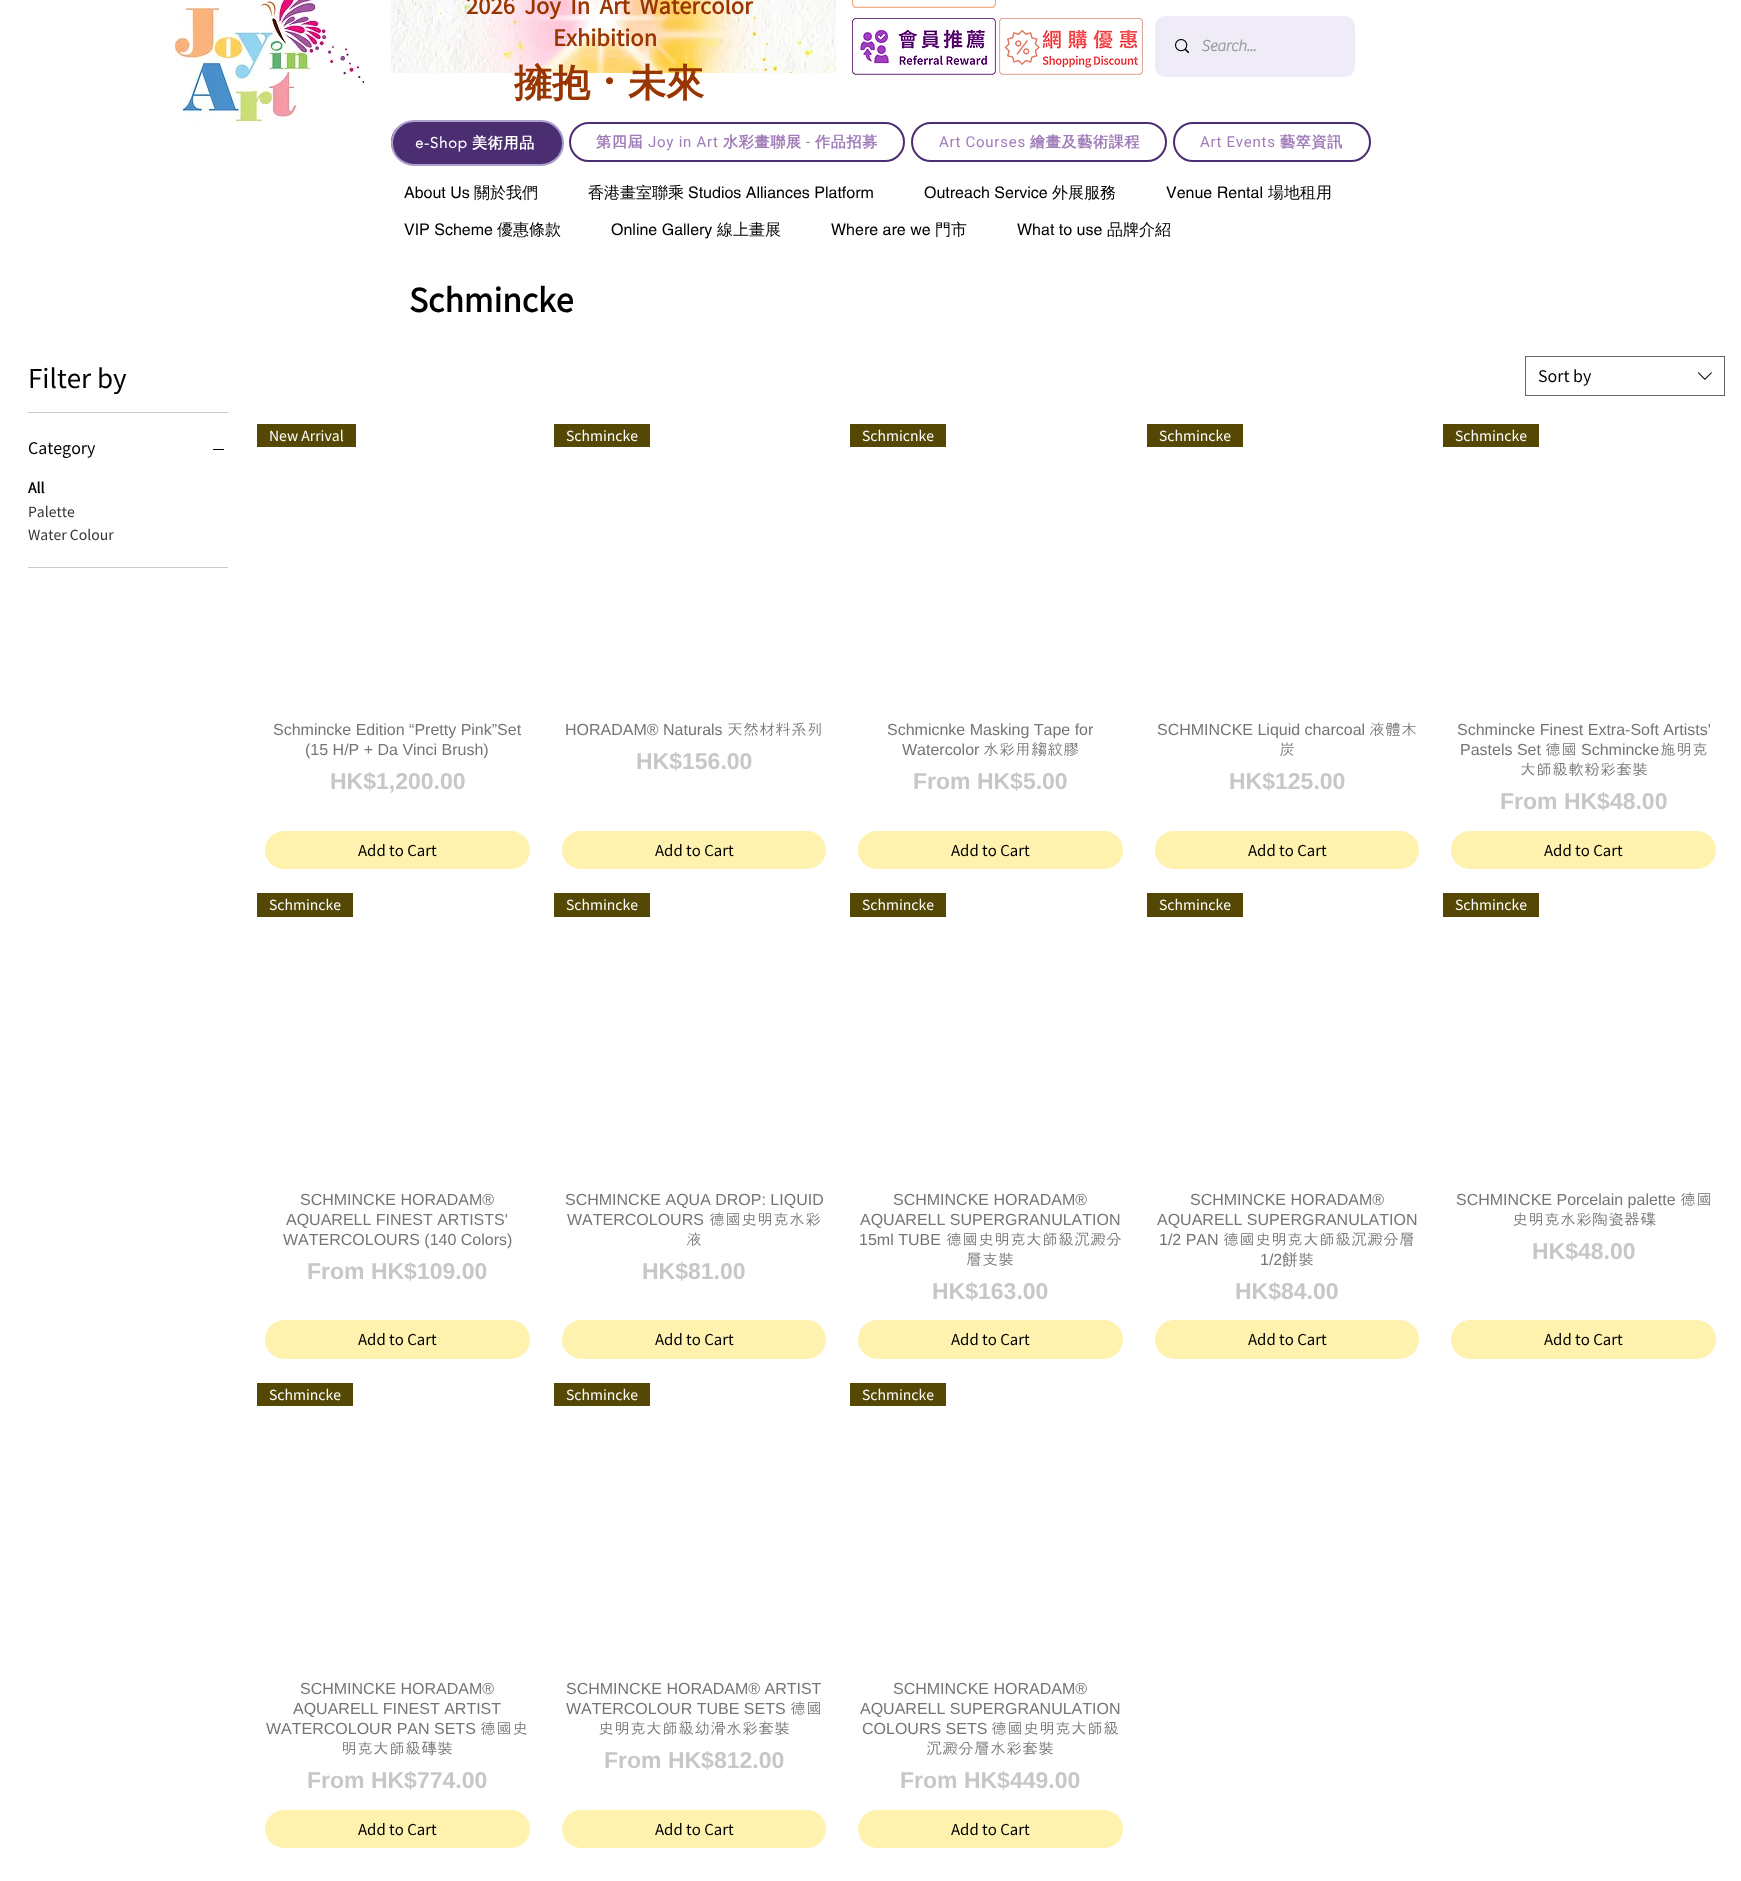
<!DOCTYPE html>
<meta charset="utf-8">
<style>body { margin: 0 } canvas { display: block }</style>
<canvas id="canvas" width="1741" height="1881"></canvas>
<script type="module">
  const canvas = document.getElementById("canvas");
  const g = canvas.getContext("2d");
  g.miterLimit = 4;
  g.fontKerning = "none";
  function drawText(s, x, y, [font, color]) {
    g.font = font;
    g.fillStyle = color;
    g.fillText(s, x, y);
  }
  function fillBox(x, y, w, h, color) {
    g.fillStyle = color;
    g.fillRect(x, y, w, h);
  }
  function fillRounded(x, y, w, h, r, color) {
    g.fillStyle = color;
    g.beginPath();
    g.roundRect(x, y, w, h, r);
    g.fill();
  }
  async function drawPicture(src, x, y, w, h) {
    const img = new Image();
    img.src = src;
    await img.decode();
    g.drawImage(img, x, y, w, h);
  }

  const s1 = ["bold 22px Noto Sans TC", "#993500"];
  const s2 = ["bold 38px WenQuanYi Zen Hei", "#993500"];
  const s3 = ["bold 38px Noto Sans TC", "#993500"];
  const s4 = ["bold 16px 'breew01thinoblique'", "#999999"];
  const s5 = ["bold 15px 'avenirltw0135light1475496'", "#FFFFFF"];
  const s6 = ["bold 15px WenQuanYi Zen Hei", "#FFFFFF"];
  const s7 = ["bold 15px WenQuanYi Zen Hei", "#A07CB8"];
  const s8 = ["15px Heebo", "#A07CB8"];
  const s9 = ["16px helvetica", "#000000"];
  const s10 = ["500 16px WenQuanYi Zen Hei", "#000000"];
  const s11 = ["bold 32px Noto Sans TC", "#000000"];
  const s12 = ["26px Noto Sans TC", "#000000"];
  const s13 = ["16px Noto Sans TC", "#000000"];
  const s14 = ["bold 14px Noto Sans TC", "#000000"];
  const s15 = ["14px Noto Sans TC", "#333333"];
  const s16 = ["14px Noto Sans TC", "#FFFFFF"];
  const s17 = ["16px Liberation Sans", "#757575"];
  const s18 = ["bold 23px Liberation Sans", "#C7C7C7"];
  const s19 = ["15px Noto Sans TC", "#000000"];
  const s20 = ["16px Dotum", "#757575"];
  const s21 = ["500 16px WenQuanYi Zen Hei", "#757575"];

  fillBox(0, 0, 1741, 1881, "#FFFFFF");
  await drawPicture("pic1.png", 175, 0, 190, 124);
  await drawPicture("pic2.png", 391, 0, 445, 73);
  g.wordSpacing = "4.5px";
  drawText("2026 Joy In Art Watercolor", 466, 14, s1);
  g.wordSpacing = "0px";
  drawText("Exhibition", 553, 46, s1);
  drawText("擁抱", 514, 96, s2);
  drawText("．", 590, 96, s3);
  drawText("未來", 628, 96, s2);
  await drawPicture("pic3.png", 850, 0, 148, 10);
  await drawPicture("pic4.png", 850, 16, 148, 61);
  await drawPicture("pic5.png", 997, 16, 148, 61);
  fillRounded(1155, 16, 200, 61, 10, "#EFECF7");
  await drawPicture("pic6.png", 1175, 39, 14, 14);
  drawText("Search...", 1201, 51, s4);
  g.beginPath();
  g.roundRect(392, 123, 170, 38, 19);
  g.strokeStyle = "#4B2D72";
  g.lineWidth = 2;
  g.stroke();
  g.fillStyle = "#4B2D72";
  g.beginPath();
  g.roundRect(392, 121, 171, 44, 22);
  g.fill();
  g.strokeStyle = "#AAA0CB";
  g.stroke();
  g.letterSpacing = "0.75px";
  drawText("e-Shop", 415, 148, s5);
  drawText("美術用品", 472, 148, s6);
  g.beginPath();
  g.roundRect(570, 123, 334, 38, 19);
  g.strokeStyle = "#4B2D72";
  g.stroke();
  drawText("第四屆", 596, 147, s7);
  drawText("Joy in Art", 648, 147, s8);
  drawText("水彩畫聯展", 723, 147, s7);
  drawText("-", 806, 147, s8);
  drawText("作品招募", 815, 147, s7);
  g.beginPath();
  g.roundRect(912, 123, 254, 38, 19);
  g.stroke();
  drawText("Art Courses", 939, 147, s8);
  drawText("繪畫及藝術課程", 1030, 147, s7);
  g.beginPath();
  g.roundRect(1174, 123, 196, 38, 19);
  g.stroke();
  drawText("Art Events", 1200, 147, s8);
  drawText("藝箤資訊", 1280, 147, s7);
  g.letterSpacing = "0px";
  drawText("About Us", 404, 198, s9);
  drawText("關於我們", 474, 198, s10);
  drawText("香港畫室聯乘", 588, 198, s10);
  drawText("Studios Alliances Platform", 688, 198, s9);
  drawText("Outreach Service", 924, 198, s9);
  drawText("外展服務", 1052, 198, s10);
  drawText("Venue Rental", 1166, 198, s9);
  drawText("場地租用", 1268, 198, s10);
  drawText("VIP Scheme", 404, 235, s9);
  drawText("優惠條款", 497, 235, s10);
  drawText("Online Gallery", 611, 235, s9);
  drawText("線上畫展", 717, 235, s10);
  drawText("Where are we", 831, 235, s9);
  drawText("門市", 935, 235, s10);
  drawText("What to use", 1017, 235, s9);
  drawText("品牌介紹", 1107, 235, s10);
  drawText("Schmincke", 409, 312, s11);
  fillBox(28, 412, 200, 1, "#CCCCCC");
  drawText("Filter by", 28, 388, s12);
  fillBox(28, 567, 200, 1, "#CCCCCC");
  drawText("Category", 28, 454, s13);
  fillBox(213, 449, 11, 1, "#000000");
  drawText("All", 28, 493, s14);
  drawText("Palette", 28, 517, s15);
  drawText("Water Colour", 28, 540, s15);
  g.strokeStyle = "#666666";
  g.lineWidth = 1;
  g.strokeRect(1525.5, 356.5, 199, 39);
  drawText("Sort by", 1538, 382, s13);
  await drawPicture("pic7.png", 1697, 372, 15, 8);
  fillBox(257, 424, 99, 23, "#544804");
  drawText("New Arrival", 269, 441, s16);
  drawText("Schmincke Edition “Pretty Pink”Set", 273, 735, s17);
  drawText("(15 H/P + Da Vinci Brush)", 305, 755, s17);
  drawText("HK$1,200.00", 330, 789, s18);
  fillRounded(265, 831, 265, 38, 19, "#FEF2AE");
  drawText("Add to Cart", 358, 856, s19);
  fillBox(554, 424, 96, 23, "#544804");
  drawText("Schmincke", 566, 441, s16);
  drawText("HORADAM® Naturals", 565, 735, s17);
  drawText("天然材料系列", 727, 735, s20);
  drawText("HK$156.00", 636, 769, s18);
  fillRounded(562, 831, 264, 38, 19, "#FEF2AE");
  drawText("Add to Cart", 655, 856, s19);
  fillBox(850, 424, 96, 23, "#544804");
  drawText("Schmicnke", 862, 441, s16);
  drawText("Schmicnke Masking Tape for", 887, 735, s17);
  drawText("Watercolor", 902, 755, s17);
  drawText("水彩用縐紋膠", 983, 755, s20);
  drawText("From HK$5.00", 913, 789, s18);
  fillRounded(858, 831, 265, 38, 19, "#FEF2AE");
  drawText("Add to Cart", 951, 856, s19);
  fillBox(1147, 424, 96, 23, "#544804");
  drawText("Schmincke", 1159, 441, s16);
  drawText("SCHMINCKE Liquid charcoal", 1157, 735, s17);
  drawText("液體木", 1369, 735, s20);
  drawText("炭", 1279, 755, s20);
  drawText("HK$125.00", 1229, 789, s18);
  fillRounded(1155, 831, 264, 38, 19, "#FEF2AE");
  drawText("Add to Cart", 1248, 856, s19);
  fillBox(1443, 424, 96, 23, "#544804");
  drawText("Schmincke", 1455, 441, s16);
  drawText("Schmincke Finest Extra-Soft Artists'", 1457, 735, s17);
  drawText("Pastels Set", 1460, 755, s17);
  drawText("德國", 1545, 755, s20);
  drawText("Schmincke", 1581, 755, s17);
  drawText("施明克", 1660, 755, s20);
  drawText("大師級軟粉彩套裝", 1520, 775, s20);
  drawText("From HK$48.00", 1500, 809, s18);
  fillRounded(1451, 831, 265, 38, 19, "#FEF2AE");
  drawText("Add to Cart", 1544, 856, s19);
  fillBox(257, 893, 96, 24, "#544804");
  drawText("Schmincke", 269, 910, s16);
  drawText("SCHMINCKE HORADAM®", 300, 1205, s17);
  drawText("AQUARELL FINEST ARTISTS'", 286, 1225, s17);
  drawText("WATERCOLOURS (140 Colors)", 283, 1245, s17);
  drawText("From HK$109.00", 307, 1279, s18);
  fillRounded(265, 1320, 265, 39, 19.5, "#FEF2AE");
  drawText("Add to Cart", 358, 1345, s19);
  fillBox(554, 893, 96, 24, "#544804");
  drawText("Schmincke", 566, 910, s16);
  drawText("SCHMINCKE AQUA DROP: LIQUID", 565, 1205, s17);
  drawText("WATERCOLOURS", 567, 1225, s17);
  drawText("德國史明克水彩", 709, 1225, s20);
  drawText("液", 686, 1245, s20);
  drawText("HK$81.00", 642, 1279, s18);
  fillRounded(562, 1320, 264, 39, 19.5, "#FEF2AE");
  drawText("Add to Cart", 655, 1345, s19);
  fillBox(850, 893, 96, 24, "#544804");
  drawText("Schmincke", 862, 910, s16);
  drawText("SCHMINCKE HORADAM®", 893, 1205, s17);
  drawText("AQUARELL SUPERGRANULATION", 860, 1225, s17);
  drawText("15ml TUBE", 859, 1245, s17);
  drawText("德國史明克大師級沉澱分", 946, 1245, s20);
  drawText("層支裝", 966, 1265, s20);
  drawText("HK$163.00", 932, 1299, s18);
  fillRounded(858, 1320, 265, 39, 19.5, "#FEF2AE");
  drawText("Add to Cart", 951, 1345, s19);
  fillBox(1147, 893, 96, 24, "#544804");
  drawText("Schmincke", 1159, 910, s16);
  drawText("SCHMINCKE HORADAM®", 1190, 1205, s17);
  drawText("AQUARELL SUPERGRANULATION", 1157, 1225, s17);
  drawText("1/2 PAN", 1159, 1245, s17);
  drawText("德國史明克大師級沉澱分層", 1223, 1245, s20);
  drawText("1/2", 1260, 1265, s17);
  drawText("餅", 1282, 1265, s21);
  drawText("裝", 1298, 1265, s20);
  drawText("HK$84.00", 1235, 1299, s18);
  fillRounded(1155, 1320, 264, 39, 19.5, "#FEF2AE");
  drawText("Add to Cart", 1248, 1345, s19);
  fillBox(1443, 893, 96, 24, "#544804");
  drawText("Schmincke", 1455, 910, s16);
  drawText("SCHMINCKE Porcelain palette", 1456, 1205, s17);
  drawText("德國", 1680, 1205, s20);
  drawText("史明克水彩陶瓷器碟", 1512, 1225, s20);
  drawText("HK$48.00", 1532, 1259, s18);
  fillRounded(1451, 1320, 265, 39, 19.5, "#FEF2AE");
  drawText("Add to Cart", 1544, 1345, s19);
  fillBox(257, 1383, 96, 23, "#544804");
  drawText("Schmincke", 269, 1400, s16);
  drawText("SCHMINCKE HORADAM®", 300, 1694, s17);
  drawText("AQUARELL FINEST ARTIST", 293, 1714, s17);
  drawText("WATERCOLOUR PAN SETS", 266, 1734, s17);
  drawText("德國史", 480, 1734, s20);
  drawText("明克大師級磚裝", 341, 1754, s20);
  drawText("From HK$774.00", 307, 1788, s18);
  fillRounded(265, 1810, 265, 38, 19, "#FEF2AE");
  drawText("Add to Cart", 358, 1835, s19);
  fillBox(554, 1383, 96, 23, "#544804");
  drawText("Schmincke", 566, 1400, s16);
  drawText("SCHMINCKE HORADAM® ARTIST", 566, 1694, s17);
  drawText("WATERCOLOUR TUBE SETS", 566, 1714, s17);
  drawText("德國", 790, 1714, s20);
  drawText("史明克大師級幼滑水彩套裝", 598, 1734, s20);
  drawText("From HK$812.00", 604, 1768, s18);
  fillRounded(562, 1810, 264, 38, 19, "#FEF2AE");
  drawText("Add to Cart", 655, 1835, s19);
  fillBox(850, 1383, 96, 23, "#544804");
  drawText("Schmincke", 862, 1400, s16);
  drawText("SCHMINCKE HORADAM®", 893, 1694, s17);
  drawText("AQUARELL SUPERGRANULATION", 860, 1714, s17);
  drawText("COLOURS SETS", 862, 1734, s17);
  drawText("德國史明克大師級", 991, 1734, s20);
  drawText("沉澱分層水彩套裝", 926, 1754, s20);
  drawText("From HK$449.00", 900, 1788, s18);
  fillRounded(858, 1810, 265, 38, 19, "#FEF2AE");
  drawText("Add to Cart", 951, 1835, s19);
</script>
